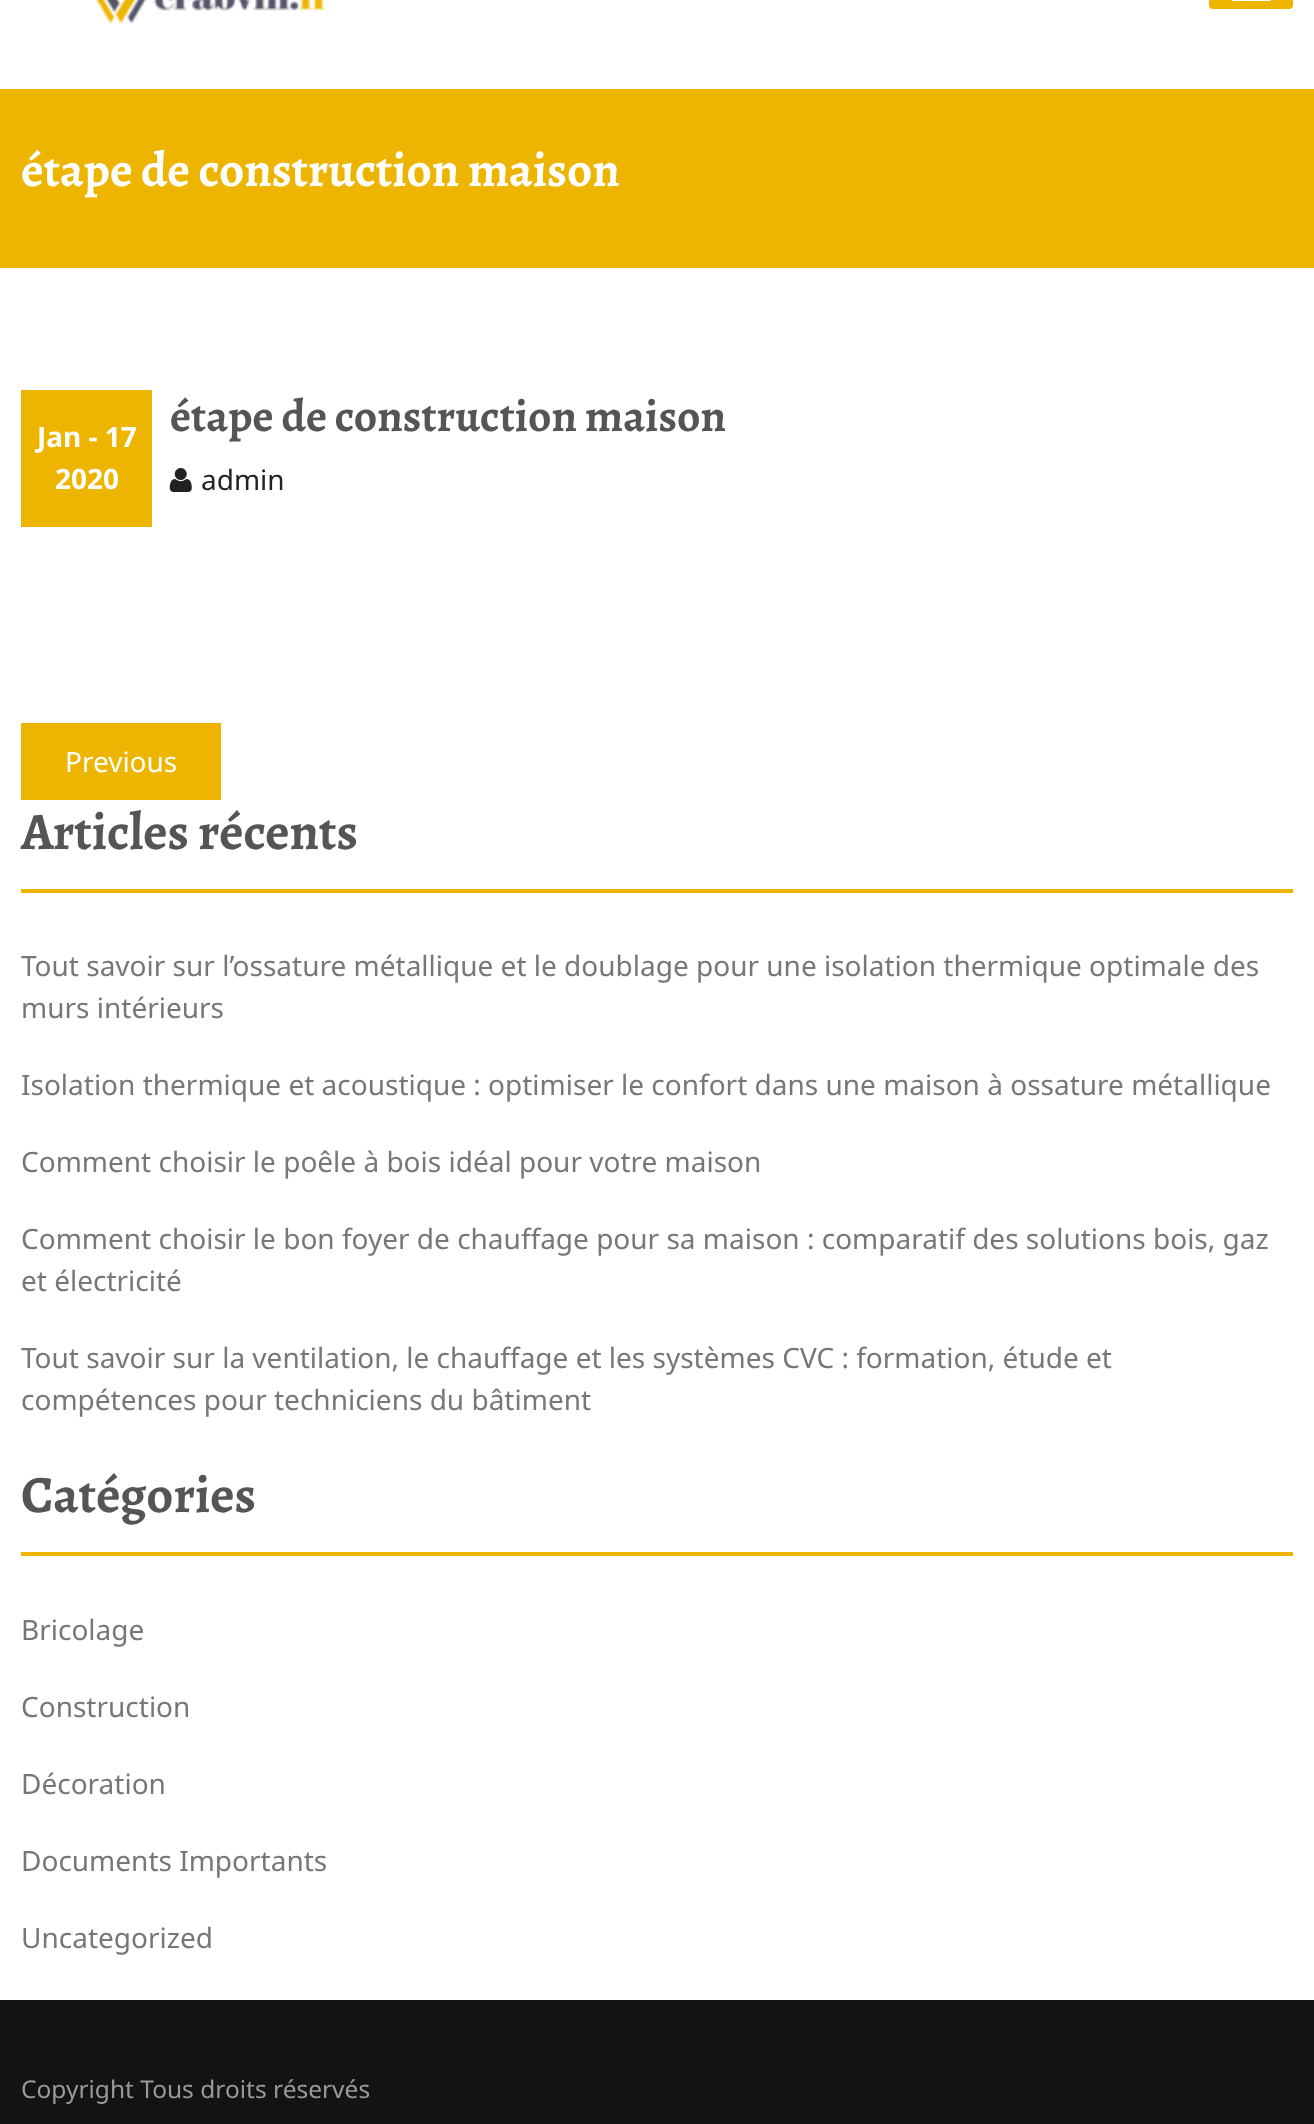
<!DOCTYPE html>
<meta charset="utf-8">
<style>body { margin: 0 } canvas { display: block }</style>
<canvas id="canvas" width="1314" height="2124"></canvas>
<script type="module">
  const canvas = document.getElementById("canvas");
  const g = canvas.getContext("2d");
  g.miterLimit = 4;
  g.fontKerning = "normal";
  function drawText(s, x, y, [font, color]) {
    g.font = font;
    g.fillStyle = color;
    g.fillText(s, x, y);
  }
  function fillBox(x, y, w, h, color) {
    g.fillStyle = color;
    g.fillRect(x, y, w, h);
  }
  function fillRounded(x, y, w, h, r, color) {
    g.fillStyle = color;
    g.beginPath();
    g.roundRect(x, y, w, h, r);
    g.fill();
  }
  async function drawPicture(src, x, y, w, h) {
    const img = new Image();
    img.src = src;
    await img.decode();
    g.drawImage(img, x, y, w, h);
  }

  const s1 = ["bold 49px Alegreya", "#FFFFFF"];
  const s2 = ["bold 45.5px Alegreya", "#555555"];
  const s3 = ["bold 28px Noto Sans", "#FFFFFF"];
  const s4 = ["28px Noto Sans", "#222222"];
  const s5 = ["28px Noto Sans", "#FFFFFF"];
  const s6 = ["bold 52.5px Alegreya", "#555555"];
  const s7 = ["28px Noto Sans", "#777777"];
  const s8 = ["24.5px Noto Sans", "#999999"];

  fillBox(0, 0, 1314, 2124, "#FFFFFF");
  await drawPicture("pic1.png", 95, 0, 235, 24);
  fillRounded(1209, -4, 84, 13, 4, "#EEB500");
  fillRounded(1232, -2, 39, 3, 2, "#FFFFFF");
  fillBox(0, 89, 1314, 179, "#EEB500");
  drawText("étape de construction maison", 21, 186, s1);
  drawText("étape de construction maison", 170, 431, s2);
  fillBox(21, 390, 131, 137, "#EEB500");
  drawText("Jan - 17", 37, 447, s3);
  drawText("2020", 55, 489, s3);
  await drawPicture("pic2.png", 169, 468, 23, 24);
  drawText("admin", 201, 490, s4);
  fillBox(21, 723, 200, 77, "#EEB500");
  drawText("Previous", 65, 772, s5);
  fillBox(21, 889, 1272, 4, "#EEB500");
  drawText("Articles récents", 21, 849, s6);
  drawText("Tout savoir sur l’ossature métallique et le doublage pour une isolation thermique optimale des", 21, 976, s7);
  drawText("murs intérieurs", 21, 1018, s7);
  drawText("Isolation thermique et acoustique : optimiser le confort dans une maison à ossature métallique", 21, 1095, s7);
  drawText("Comment choisir le poêle à bois idéal pour votre maison", 21, 1172, s7);
  drawText("Comment choisir le bon foyer de chauffage pour sa maison : comparatif des solutions bois, gaz", 21, 1249, s7);
  drawText("et électricité", 21, 1291, s7);
  drawText("Tout savoir sur la ventilation, le chauffage et les systèmes CVC : formation, étude et", 21, 1368, s7);
  drawText("compétences pour techniciens du bâtiment", 21, 1410, s7);
  fillBox(21, 1552, 1272, 4, "#EEB500");
  drawText("Catégories", 21, 1512, s6);
  drawText("Bricolage", 21, 1640, s7);
  drawText("Construction", 21, 1717, s7);
  drawText("Décoration", 21, 1794, s7);
  drawText("Documents Importants", 21, 1871, s7);
  drawText("Uncategorized", 21, 1948, s7);
  fillBox(0, 2000, 1314, 124, "#111315");
  drawText("Copyright Tous droits réservés", 21, 2098, s8);
</script>
